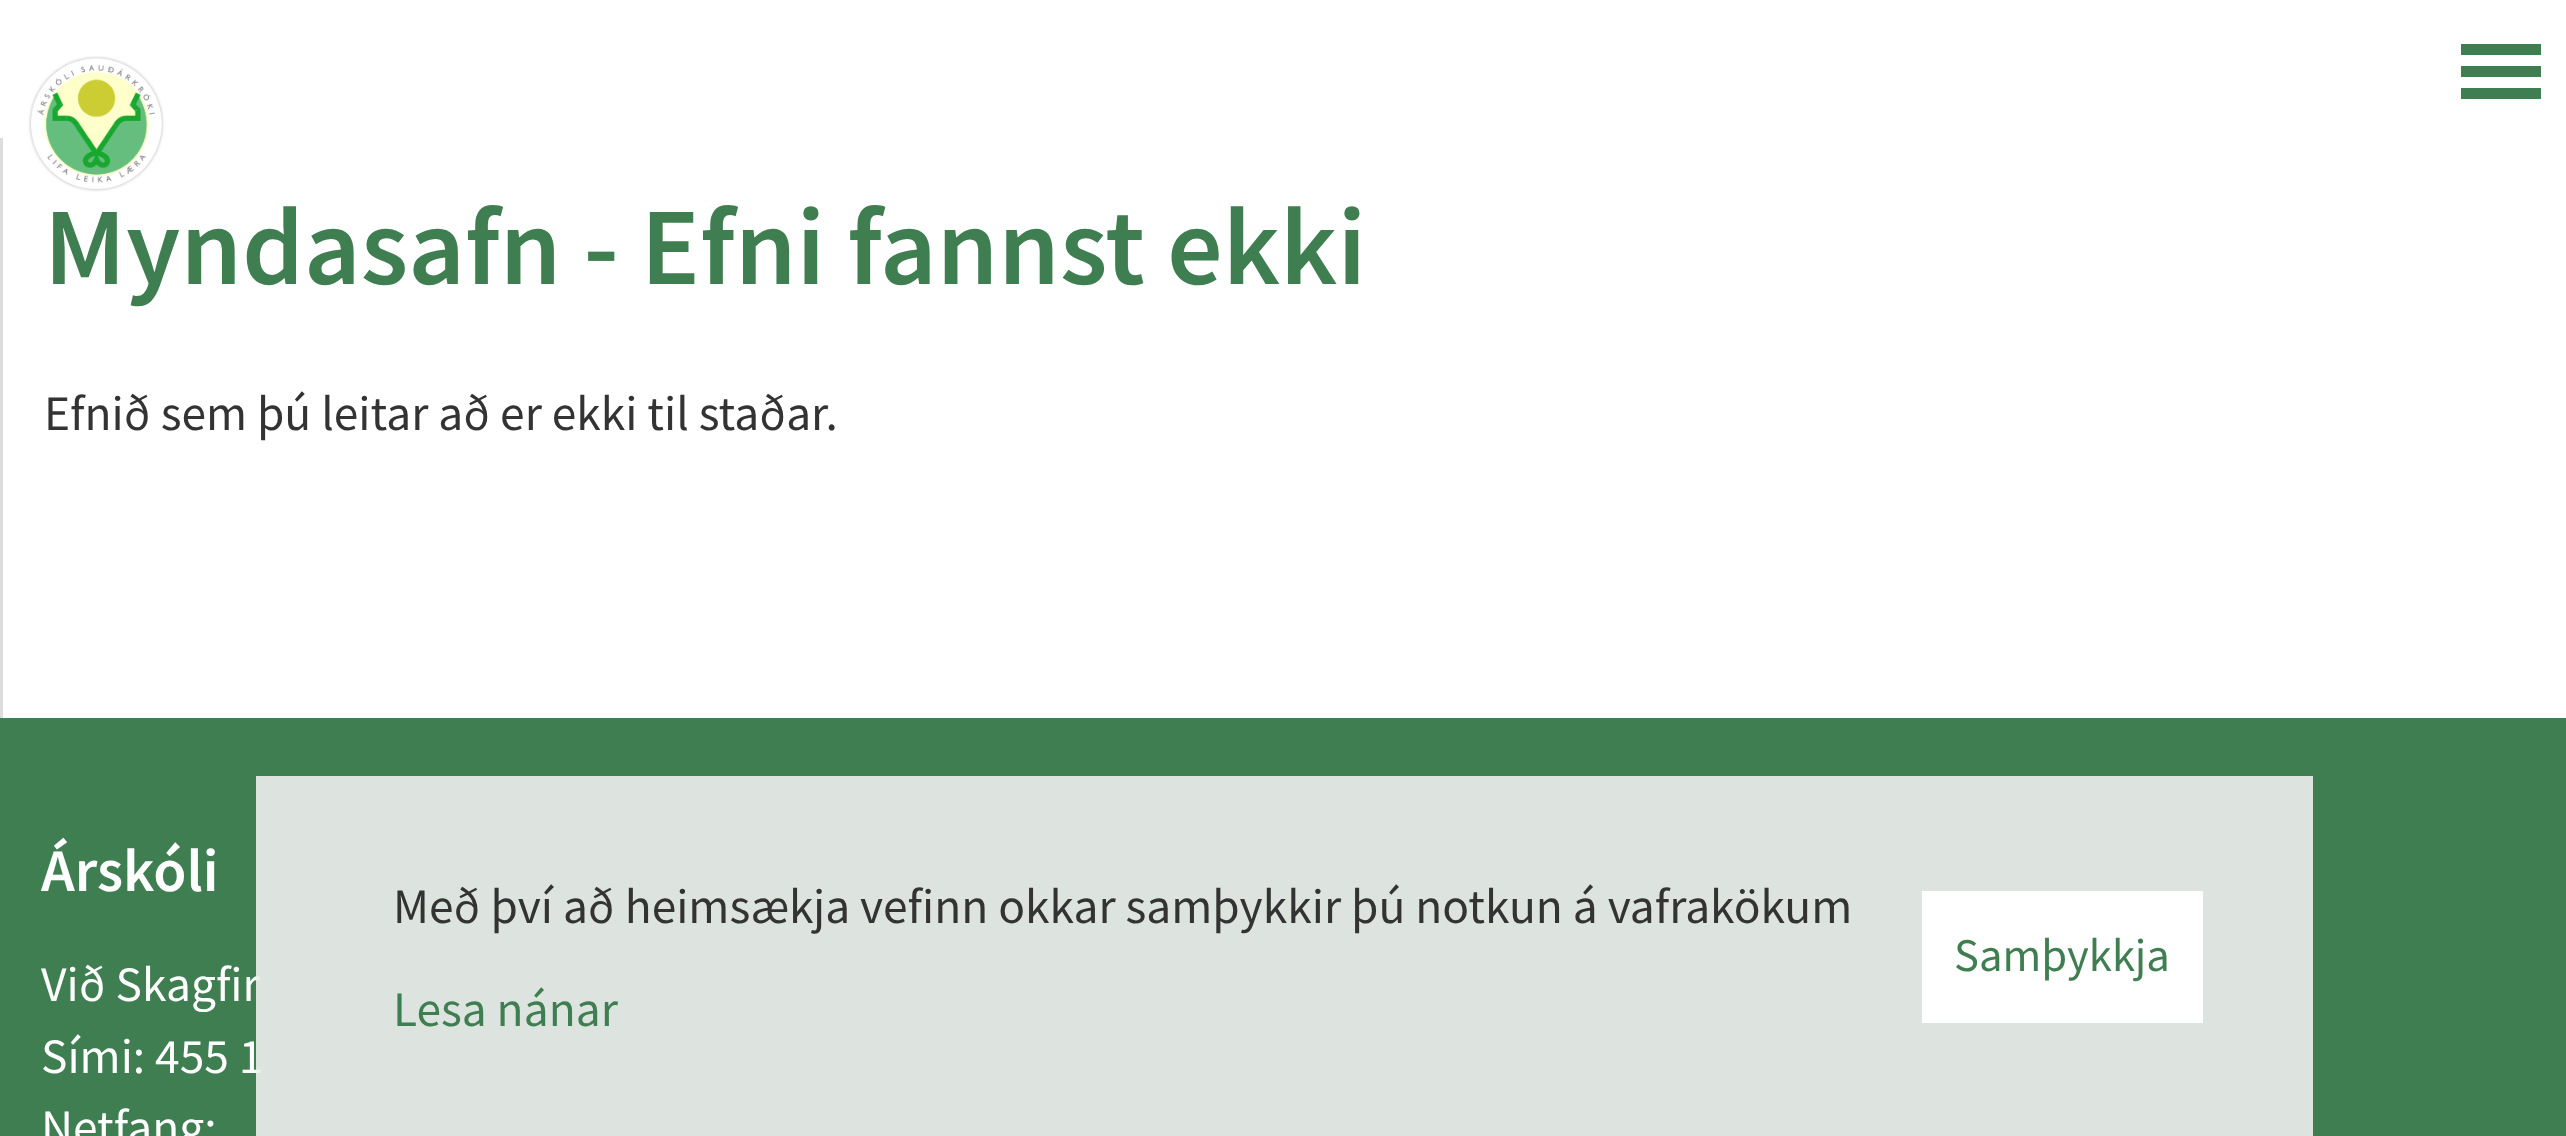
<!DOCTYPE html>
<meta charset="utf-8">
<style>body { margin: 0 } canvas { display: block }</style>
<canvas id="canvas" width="2566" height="1136"></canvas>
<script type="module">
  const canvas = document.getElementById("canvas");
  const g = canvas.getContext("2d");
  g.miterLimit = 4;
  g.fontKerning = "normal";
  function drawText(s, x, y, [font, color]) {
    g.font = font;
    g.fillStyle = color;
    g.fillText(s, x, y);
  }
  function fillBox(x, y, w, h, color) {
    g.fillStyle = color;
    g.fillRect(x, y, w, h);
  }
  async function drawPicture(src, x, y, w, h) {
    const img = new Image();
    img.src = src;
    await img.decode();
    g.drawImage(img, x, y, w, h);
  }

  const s1 = ["600 110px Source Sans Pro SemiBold", "#3F7E51"];
  const s2 = ["49.5px Source Sans Pro", "#333333"];
  const s3 = ["600 60.5px Source Sans Pro SemiBold", "#FFFFFF"];
  const s4 = ["49.5px Source Sans Pro", "#FFFFFF"];
  const s5 = ["49.5px Source Sans Pro", "#3F7E51"];
  const s6 = ["46.75px Source Sans Pro", "#3F7E51"];

  fillBox(0, 0, 2566, 1136, "#3F7E51");
  fillBox(0, 0, 2566, 138, "#FFFFFF");
  fillBox(3, 138, 2563, 580, "#FFFFFF");
  await drawPicture("pic1.png", 28, 56, 136, 136);
  fillBox(2461, 44, 80, 11, "#3F7E51");
  fillBox(2461, 66, 80, 11, "#3F7E51");
  fillBox(2461, 88, 80, 11, "#3F7E51");
  fillBox(0, 138, 3, 580, "#DDDDDD");
  drawText("Myndasafn - Efni fannst ekki", 44, 284, s1);
  drawText("Efnið sem þú leitar að er ekki til staðar.", 44, 430, s2);
  drawText("Árskóli", 41, 891, s3);
  drawText("Við Skagfir", 41, 1001, s4);
  drawText("Sími: 455 1", 41, 1073, s4);
  drawText("Netfang:", 41, 1144, s4);
  fillBox(256, 776, 2057, 360, "rgba(238, 238, 238, 0.9)");
  drawText("Með því að heimsækja vefinn okkar samþykkir þú notkun á vafrakökum", 393, 923, s2);
  drawText("Lesa nánar", 393, 1026, s5);
  fillBox(1922, 891, 281, 132, "#FFFFFF");
  drawText("Samþykkja", 1954, 971, s6);
</script>
